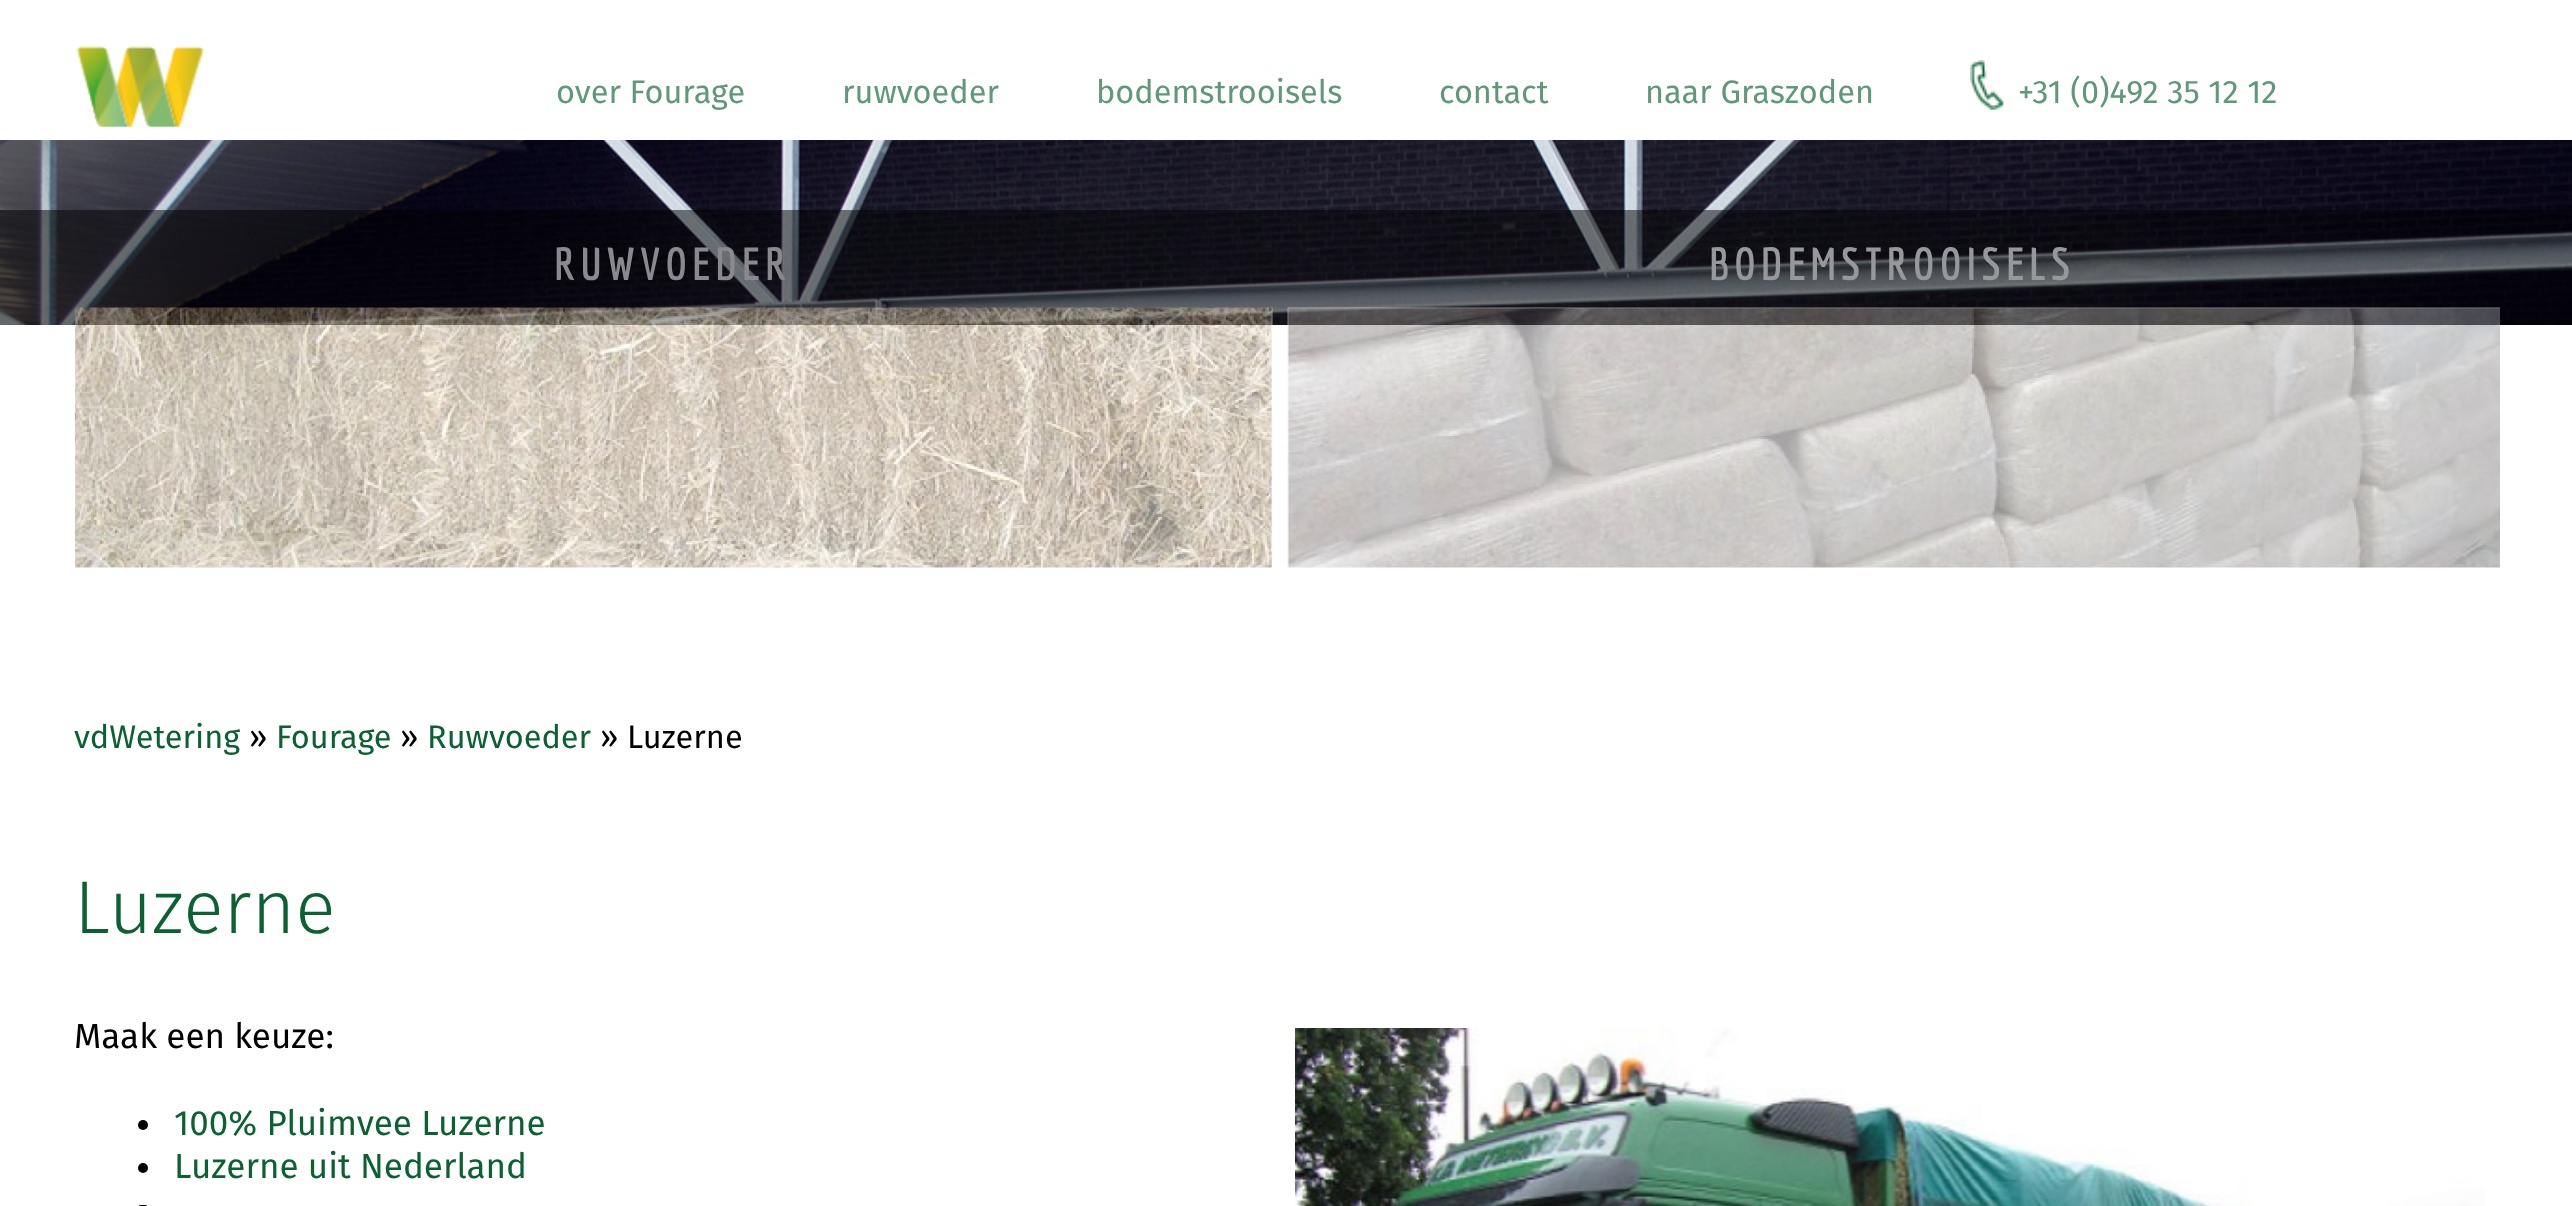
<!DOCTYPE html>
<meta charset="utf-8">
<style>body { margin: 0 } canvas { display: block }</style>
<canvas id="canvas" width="2572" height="1206"></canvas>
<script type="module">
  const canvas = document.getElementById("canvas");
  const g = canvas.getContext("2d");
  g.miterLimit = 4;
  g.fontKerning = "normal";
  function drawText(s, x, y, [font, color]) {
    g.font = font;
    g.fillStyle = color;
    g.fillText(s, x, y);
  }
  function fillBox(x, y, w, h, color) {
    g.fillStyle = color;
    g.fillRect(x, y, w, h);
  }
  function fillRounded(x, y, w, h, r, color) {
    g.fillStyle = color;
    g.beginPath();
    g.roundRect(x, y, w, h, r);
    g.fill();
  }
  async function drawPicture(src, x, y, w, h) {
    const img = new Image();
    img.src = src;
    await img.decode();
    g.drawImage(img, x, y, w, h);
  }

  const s1 = ["32.5px Fira Sans", "#60987A"];
  const s2 = ["bold 45px Economica", "#8A898D"];
  const s3 = ["bold 45px Economica", "#97989B"];
  const s4 = ["32.5px Fira Sans", "#0A6132"];
  const s5 = ["32.5px Fira Sans", "#000000"];
  const s6 = ["300 75px Fira Sans", "#0A6132"];
  const s7 = ["35px Fira Sans", "#000000"];
  const s8 = ["35px Fira Sans", "#0A6132"];

  fillBox(0, 0, 2572, 1206, "#FFFFFF");
  await drawPicture("pic1.png", 75, 46, 130, 82);
  drawText("over Fourage", 556, 103, s1);
  drawText("ruwvoeder", 842, 103, s1);
  drawText("bodemstrooisels", 1096, 103, s1);
  drawText("contact", 1439, 103, s1);
  drawText("naar Graszoden", 1645, 103, s1);
  await drawPicture("pic2.png", 1970, 60, 34, 50);
  drawText("+31 (0)492 35 12 12", 2018, 103, s1);
  await drawPicture("pic3.png", 0, 140, 2572, 185);
  fillBox(0, 210, 2572, 115, "rgba(0, 0, 0, 0.5)");
  g.letterSpacing = "5px";
  drawText("RUWVOEDER", 554, 280, s2);
  await drawPicture("pic4.png", 75, 307, 1198, 261);
  drawText("BODEMSTROOISELS", 1709, 280, s3);
  await drawPicture("pic5.png", 1287, 307, 1213, 261);
  g.letterSpacing = "0px";
  drawText("vdWetering", 74, 748, s4);
  drawText("»", 249, 748, s5);
  drawText("Fourage", 276, 748, s4);
  drawText("»", 400, 748, s5);
  drawText("Ruwvoeder", 427, 748, s4);
  drawText("» Luzerne", 600, 748, s5);
  drawText("Luzerne", 74, 933, s6);
  drawText("Maak een keuze:", 74, 1048, s7);
  g.beginPath();
  g.arc(143, 1125, 5, 0, Math.PI * 2);
  g.fill();
  drawText("100% Pluimvee Luzerne", 174, 1135, s8);
  g.fillStyle = "#000000";
  g.beginPath();
  g.arc(143, 1168, 5, 0, Math.PI * 2);
  g.fill();
  drawText("Luzerne uit Nederland", 174, 1178, s8);
  fillRounded(138, 1205, 10, 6, 5, "#000000");
  await drawPicture("pic6.png", 1295, 1028, 1190, 178);
</script>
